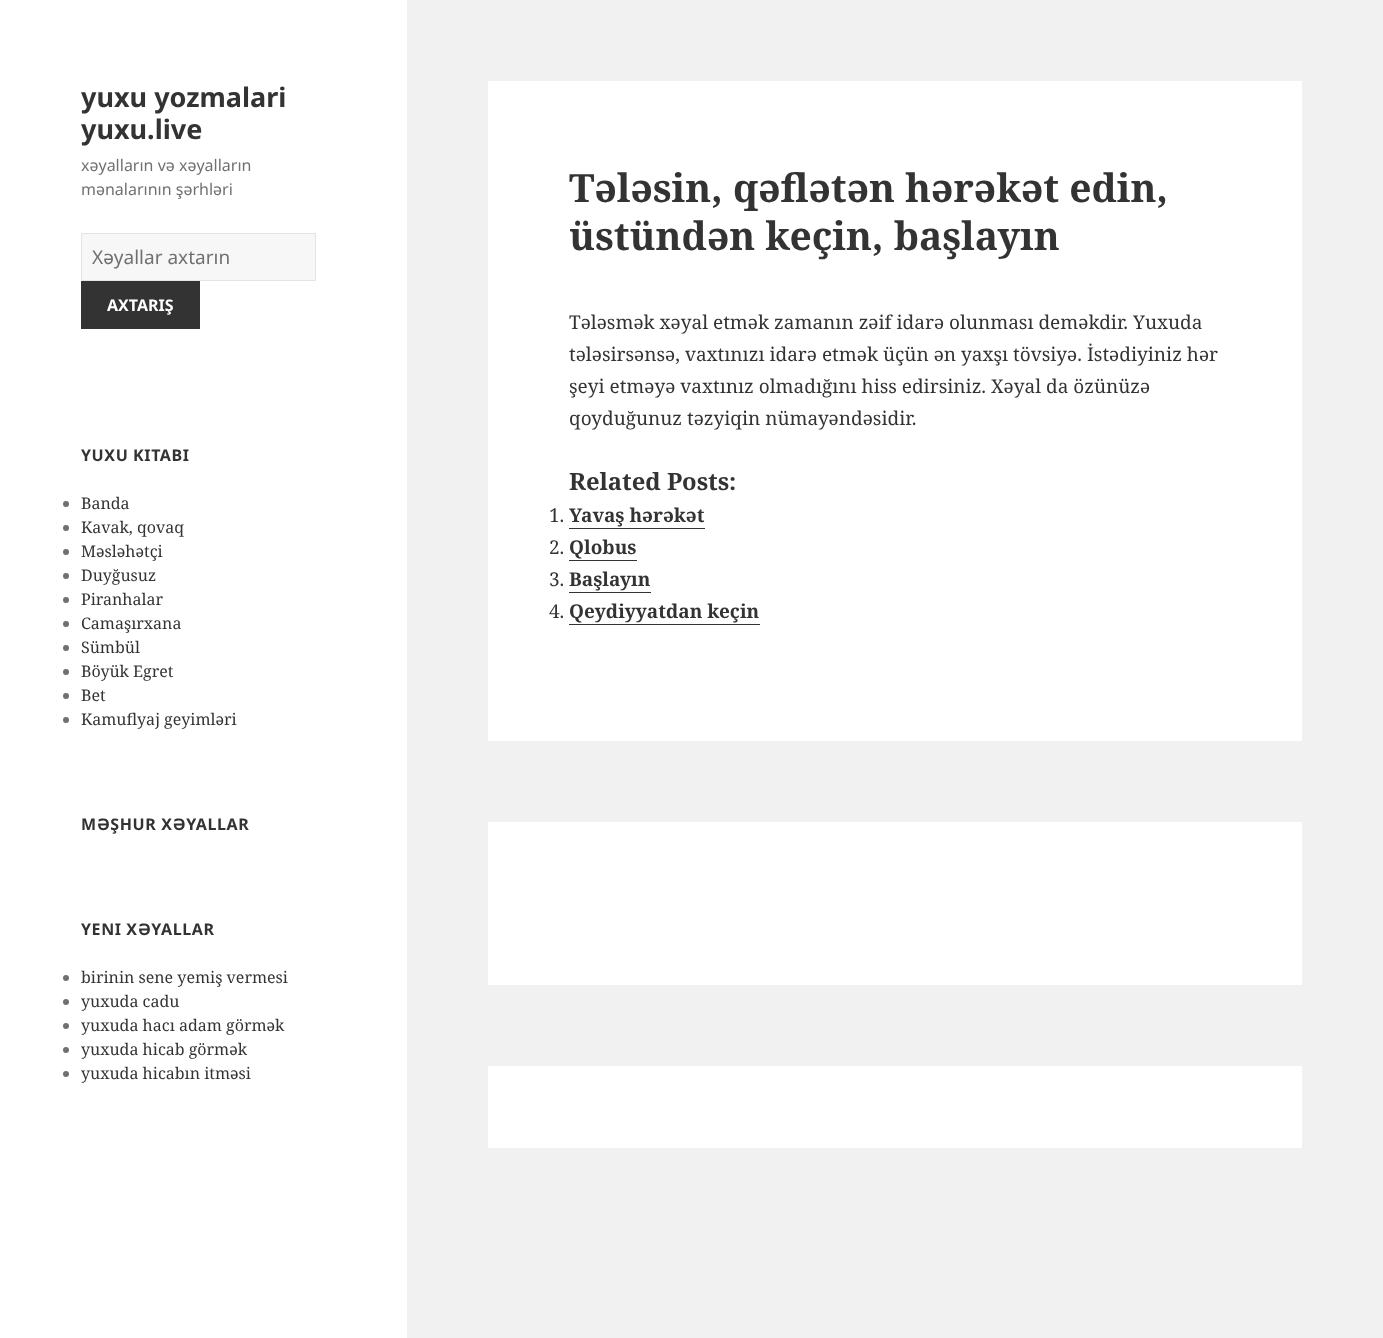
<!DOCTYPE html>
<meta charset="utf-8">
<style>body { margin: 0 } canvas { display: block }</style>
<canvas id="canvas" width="1383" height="1338"></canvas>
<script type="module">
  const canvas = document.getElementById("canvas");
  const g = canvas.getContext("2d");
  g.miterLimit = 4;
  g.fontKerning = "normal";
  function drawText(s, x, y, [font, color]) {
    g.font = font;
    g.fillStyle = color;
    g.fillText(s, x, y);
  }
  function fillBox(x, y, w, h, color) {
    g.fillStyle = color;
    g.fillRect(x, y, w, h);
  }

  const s1 = ["bold 27px Noto Sans", "#333333"];
  const s2 = ["16px Noto Sans", "#707070"];
  const s3 = ["19px Noto Sans", "#707070"];
  const s4 = ["bold 16px Noto Sans", "#FFFFFF"];
  const s5 = ["bold 16px Noto Sans", "#333333"];
  const s6 = ["16px Noto Serif", "#333333"];
  const s7 = ["bold 39px Noto Serif", "#333333"];
  const s8 = ["19px Noto Serif", "#333333"];
  const s9 = ["bold 23.75px Noto Serif", "#333333"];
  const s10 = ["bold 19px Noto Serif", "#333333"];

  fillBox(0, 0, 1383, 1338, "#F1F1F1");
  fillBox(0, 0, 407, 1338, "#FFFFFF");
  drawText("yuxu yozmalari", 81, 107, s1);
  drawText("yuxu.live", 81, 139, s1);
  drawText("xəyalların və xəyalların", 81, 171, s2);
  drawText("mənalarının şərhləri", 81, 195, s2);
  g.fillStyle = "#F7F7F7";
  g.beginPath();
  g.rect(81.5, 233.5, 234, 47);
  g.fill();
  g.strokeStyle = "#E3E3E3";
  g.stroke();
  drawText("Xəyallar axtarın", 92, 264, s3);
  fillBox(81, 281, 119, 48, "#333333");
  drawText("AXTARIŞ", 107, 311, s4);
  g.letterSpacing = "0.6px";
  drawText("YUXU KITABI", 81, 461, s5);
  g.fillStyle = "#707070";
  g.beginPath();
  g.arc(66, 504, 3, 0, Math.PI * 2);
  g.fill();
  g.letterSpacing = "0px";
  drawText("Banda", 81, 509, s6);
  g.fillStyle = "#707070";
  g.beginPath();
  g.arc(66, 528, 3, 0, Math.PI * 2);
  g.fill();
  drawText("Kavak, qovaq", 81, 533, s6);
  g.fillStyle = "#707070";
  g.beginPath();
  g.arc(66, 552, 3, 0, Math.PI * 2);
  g.fill();
  drawText("Məsləhətçi", 81, 557, s6);
  g.fillStyle = "#707070";
  g.beginPath();
  g.arc(66, 576, 3, 0, Math.PI * 2);
  g.fill();
  drawText("Duyğusuz", 81, 581, s6);
  g.fillStyle = "#707070";
  g.beginPath();
  g.arc(66, 600, 3, 0, Math.PI * 2);
  g.fill();
  drawText("Piranhalar", 81, 605, s6);
  g.fillStyle = "#707070";
  g.beginPath();
  g.arc(66, 624, 3, 0, Math.PI * 2);
  g.fill();
  drawText("Camaşırxana", 81, 629, s6);
  g.fillStyle = "#707070";
  g.beginPath();
  g.arc(66, 648, 3, 0, Math.PI * 2);
  g.fill();
  drawText("Sümbül", 81, 653, s6);
  g.fillStyle = "#707070";
  g.beginPath();
  g.arc(66, 672, 3, 0, Math.PI * 2);
  g.fill();
  drawText("Böyük Egret", 81, 677, s6);
  g.fillStyle = "#707070";
  g.beginPath();
  g.arc(66, 696, 3, 0, Math.PI * 2);
  g.fill();
  drawText("Bet", 81, 701, s6);
  g.fillStyle = "#707070";
  g.beginPath();
  g.arc(66, 720, 3, 0, Math.PI * 2);
  g.fill();
  drawText("Kamuflyaj geyimləri", 81, 725, s6);
  g.letterSpacing = "0.6px";
  drawText("MƏŞHUR XƏYALLAR", 81, 830, s5);
  drawText("YENI XƏYALLAR", 81, 935, s5);
  g.fillStyle = "#707070";
  g.beginPath();
  g.arc(66, 978, 3, 0, Math.PI * 2);
  g.fill();
  g.letterSpacing = "0px";
  drawText("birinin sene yemiş vermesi", 81, 983, s6);
  g.fillStyle = "#707070";
  g.beginPath();
  g.arc(66, 1002, 3, 0, Math.PI * 2);
  g.fill();
  drawText("yuxuda cadu", 81, 1007, s6);
  g.fillStyle = "#707070";
  g.beginPath();
  g.arc(66, 1026, 3, 0, Math.PI * 2);
  g.fill();
  drawText("yuxuda hacı adam görmək", 81, 1031, s6);
  g.fillStyle = "#707070";
  g.beginPath();
  g.arc(66, 1050, 3, 0, Math.PI * 2);
  g.fill();
  drawText("yuxuda hicab görmək", 81, 1055, s6);
  g.fillStyle = "#707070";
  g.beginPath();
  g.arc(66, 1074, 3, 0, Math.PI * 2);
  g.fill();
  drawText("yuxuda hicabın itməsi", 81, 1079, s6);
  fillBox(488, 81, 814, 660, "#FFFFFF");
  drawText("Tələsin, qəflətən hərəkət edin,", 569, 202, s7);
  drawText("üstündən keçin, başlayın", 569, 250, s7);
  drawText("Tələsmək xəyal etmək zamanın zəif idarə olunması deməkdir. Yuxuda", 569, 329, s8);
  drawText("tələsirsənsə, vaxtınızı idarə etmək üçün ən yaxşı tövsiyə. İstədiyiniz hər", 569, 361, s8);
  drawText("şeyi etməyə vaxtınız olmadığını hiss edirsiniz. Xəyal da özünüzə", 569, 393, s8);
  drawText("qoyduğunuz təzyiqin nümayəndəsidir.", 569, 425, s8);
  drawText("Related Posts:", 569, 490, s9);
  drawText("1.", 549, 522, s8);
  drawText("Yavaş hərəkət", 569, 522, s10);
  fillBox(569, 528, 136, 1, "#333333");
  drawText("2.", 549, 554, s8);
  drawText("Qlobus", 569, 554, s10);
  fillBox(569, 560, 68, 1, "#333333");
  drawText("3.", 549, 586, s8);
  drawText("Başlayın", 569, 586, s10);
  fillBox(569, 592, 82, 1, "#333333");
  drawText("4.", 549, 618, s8);
  drawText("Qeydiyyatdan keçin", 569, 618, s10);
  fillBox(569, 624, 191, 1, "#333333");
  fillBox(488, 822, 814, 163, "#FFFFFF");
  fillBox(488, 1066, 814, 82, "#FFFFFF");
</script>
